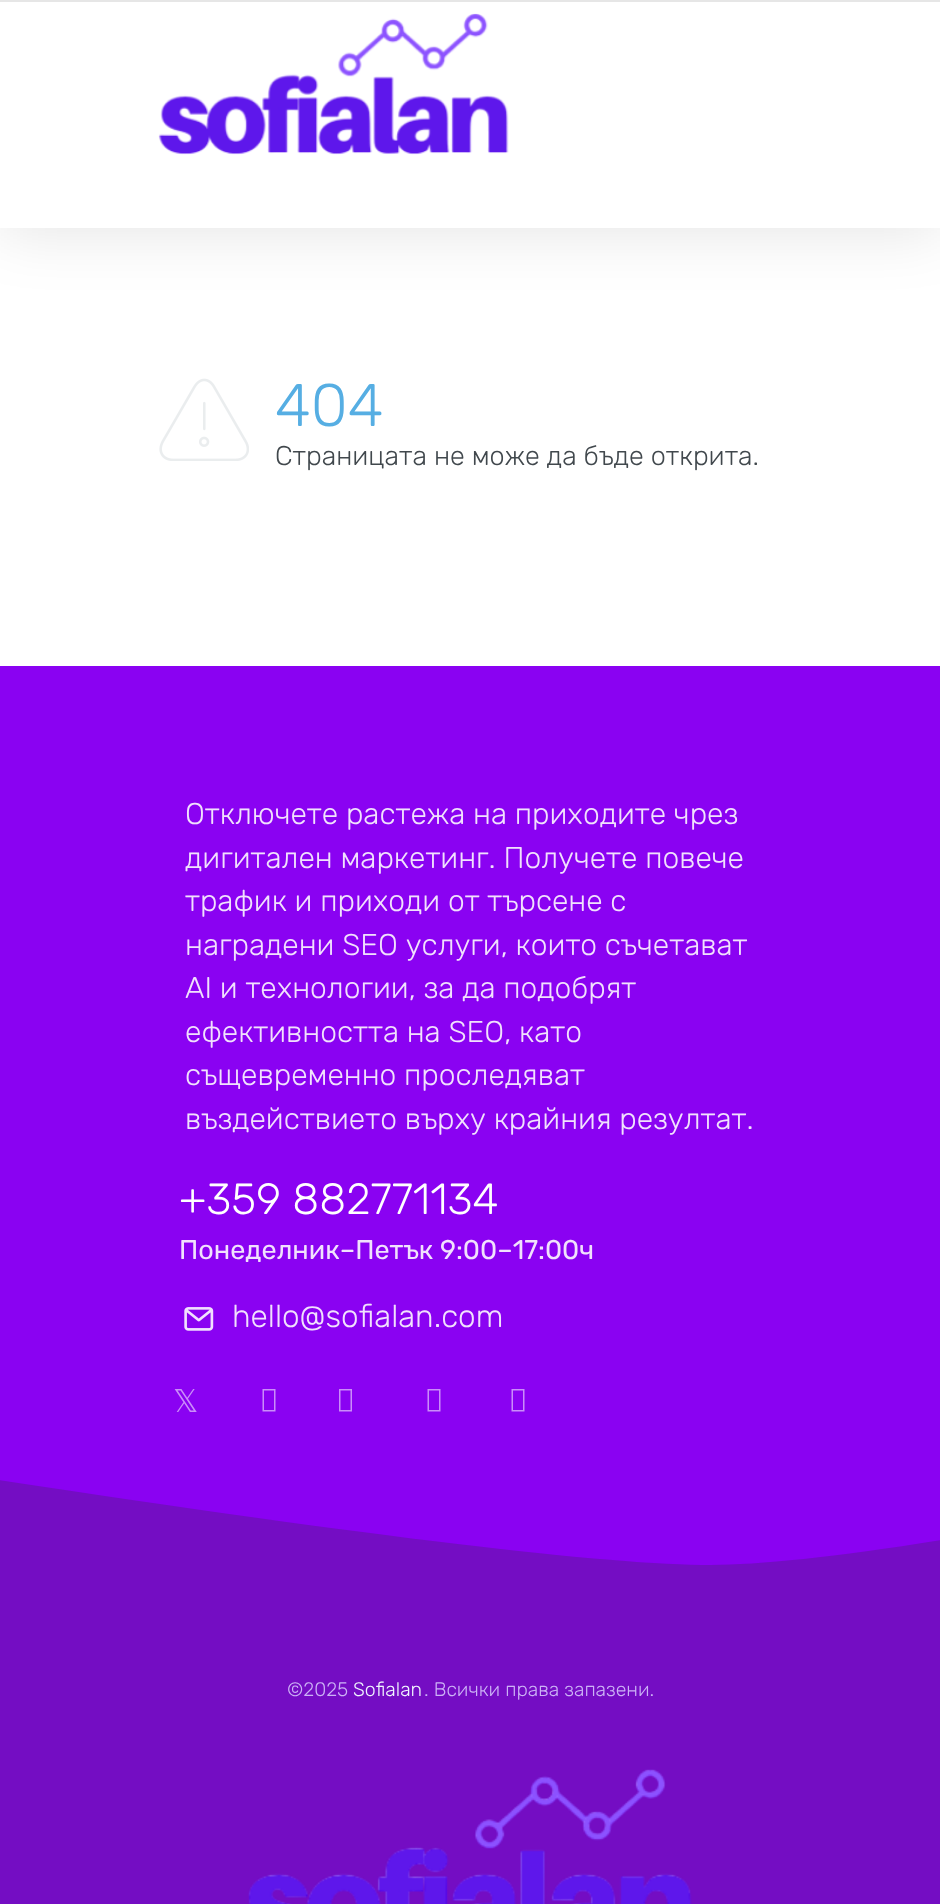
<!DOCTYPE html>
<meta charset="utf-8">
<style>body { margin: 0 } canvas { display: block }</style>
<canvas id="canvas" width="940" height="1904"></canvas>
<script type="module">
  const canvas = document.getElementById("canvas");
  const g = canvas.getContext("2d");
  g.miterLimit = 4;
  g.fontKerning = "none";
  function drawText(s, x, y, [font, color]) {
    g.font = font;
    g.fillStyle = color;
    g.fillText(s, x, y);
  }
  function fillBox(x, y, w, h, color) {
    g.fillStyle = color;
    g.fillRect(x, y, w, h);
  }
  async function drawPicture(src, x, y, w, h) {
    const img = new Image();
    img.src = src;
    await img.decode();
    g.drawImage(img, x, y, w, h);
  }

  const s1 = ["300 60px Rubik", "#56AEE3"];
  const s2 = ["300 27px Rubik", "#41484D"];
  const s3 = ["300 30px Rubik", "#F1E1FD"];
  const s4 = ["300 43.5px Rubik", "#FFFFFF"];
  const s5 = ["27px Rubik", "#F1E1FD"];
  const s6 = ["300 31.5px Rubik", "#F1E1FD"];
  const s7 = ["31.5px DejaVu Sans", "#CA8DF9"];
  const s8 = ["300 19.5px Rubik", "#CCB2F6"];
  const s9 = ["300 19.5px Rubik", "#F0F5FE"];

  fillBox(0, 0, 940, 1904, "#FFFFFF");
  g.fillStyle = "rgba(0, 0, 0, 0.1)";
  g.filter = "blur(30px)";
  g.beginPath();
  g.rect(0, 5, 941, 228);
  g.fill();
  g.filter = "none";
  fillBox(0, 2, 940, 226, "#FFFFFF");
  fillBox(0, 0, 940, 2, "#E6E6E6");
  await drawPicture("pic1.png", 158, 13, 351, 142);
  await drawPicture("pic2.png", 159, 378, 90, 83);
  drawText("404", 275, 426, s1);
  drawText("Страницата не може да бъде открита.", 275, 465, s2);
  fillBox(0, 666, 940, 899, "#8A02F2");
  drawText("Отключете растежа на приходите чрез", 185, 824, s3);
  drawText("дигитален маркетинг. Получете повече", 185, 868, s3);
  drawText("трафик и приходи от търсене с", 185, 911, s3);
  drawText("наградени SEO услуги, които съчетават", 185, 955, s3);
  drawText("AI и технологии, за да подобрят", 185, 998, s3);
  drawText("ефективността на SEO, като", 185, 1042, s3);
  drawText("същевременно проследяват", 185, 1085, s3);
  drawText("въздействието върху крайния резултат.", 185, 1129, s3);
  drawText("+359 882771134", 179, 1214, s4);
  drawText("Понеделник–Петък 9:00–17:00ч", 179, 1259, s5);
  await drawPicture("pic3.png", 184, 1307, 30, 24);
  drawText("hello@sofialan.com", 232, 1327, s6);
  drawText("𝕏", 173, 1412, s7);
  g.beginPath();
  g.moveTo(262.5, 1411.5);
  g.lineTo(262.5, 1389);
  g.lineTo(275.5, 1389);
  g.lineTo(275.5, 1411.5);
  g.closePath();
  g.moveTo(264, 1410);
  g.lineTo(274, 1410);
  g.lineTo(274, 1390.5);
  g.lineTo(264, 1390.5);
  g.closePath();
  g.fill();
  g.beginPath();
  g.moveTo(339, 1411.5);
  g.lineTo(339, 1389);
  g.lineTo(352, 1389);
  g.lineTo(352, 1411.5);
  g.closePath();
  g.moveTo(340.5, 1410);
  g.lineTo(350.5, 1410);
  g.lineTo(350.5, 1390.5);
  g.lineTo(340.5, 1390.5);
  g.closePath();
  g.fill();
  g.beginPath();
  g.moveTo(427.5, 1411.5);
  g.lineTo(427.5, 1389);
  g.lineTo(440.5, 1389);
  g.lineTo(440.5, 1411.5);
  g.closePath();
  g.moveTo(429, 1410);
  g.lineTo(439, 1410);
  g.lineTo(439, 1390.5);
  g.lineTo(429, 1390.5);
  g.closePath();
  g.fill();
  g.beginPath();
  g.moveTo(511.5, 1411.5);
  g.lineTo(511.5, 1389);
  g.lineTo(524.5, 1389);
  g.lineTo(524.5, 1411.5);
  g.closePath();
  g.moveTo(513, 1410);
  g.lineTo(523, 1410);
  g.lineTo(523, 1390.5);
  g.lineTo(513, 1390.5);
  g.closePath();
  g.fill();
  g.fillStyle = "#740DC3";
  g.beginPath();
  g.moveTo(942, 1540);
  g.bezierCurveTo(836, 1557, 759, 1565, 711, 1565);
  g.bezierCurveTo(610, 1565, 373, 1537, -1, 1480);
  g.lineTo(-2, 1570);
  g.lineTo(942, 1570);
  g.closePath();
  g.fill();
  fillBox(0, 1570, 940, 334, "#740DC3");
  drawText("©2025", 287, 1696, s8);
  drawText("Sofialan", 353, 1696, s9);
  drawText(". Всички права запазени.", 424, 1696, s8);
  await drawPicture("pic4.png", 248, 1769, 444, 135);
</script>
